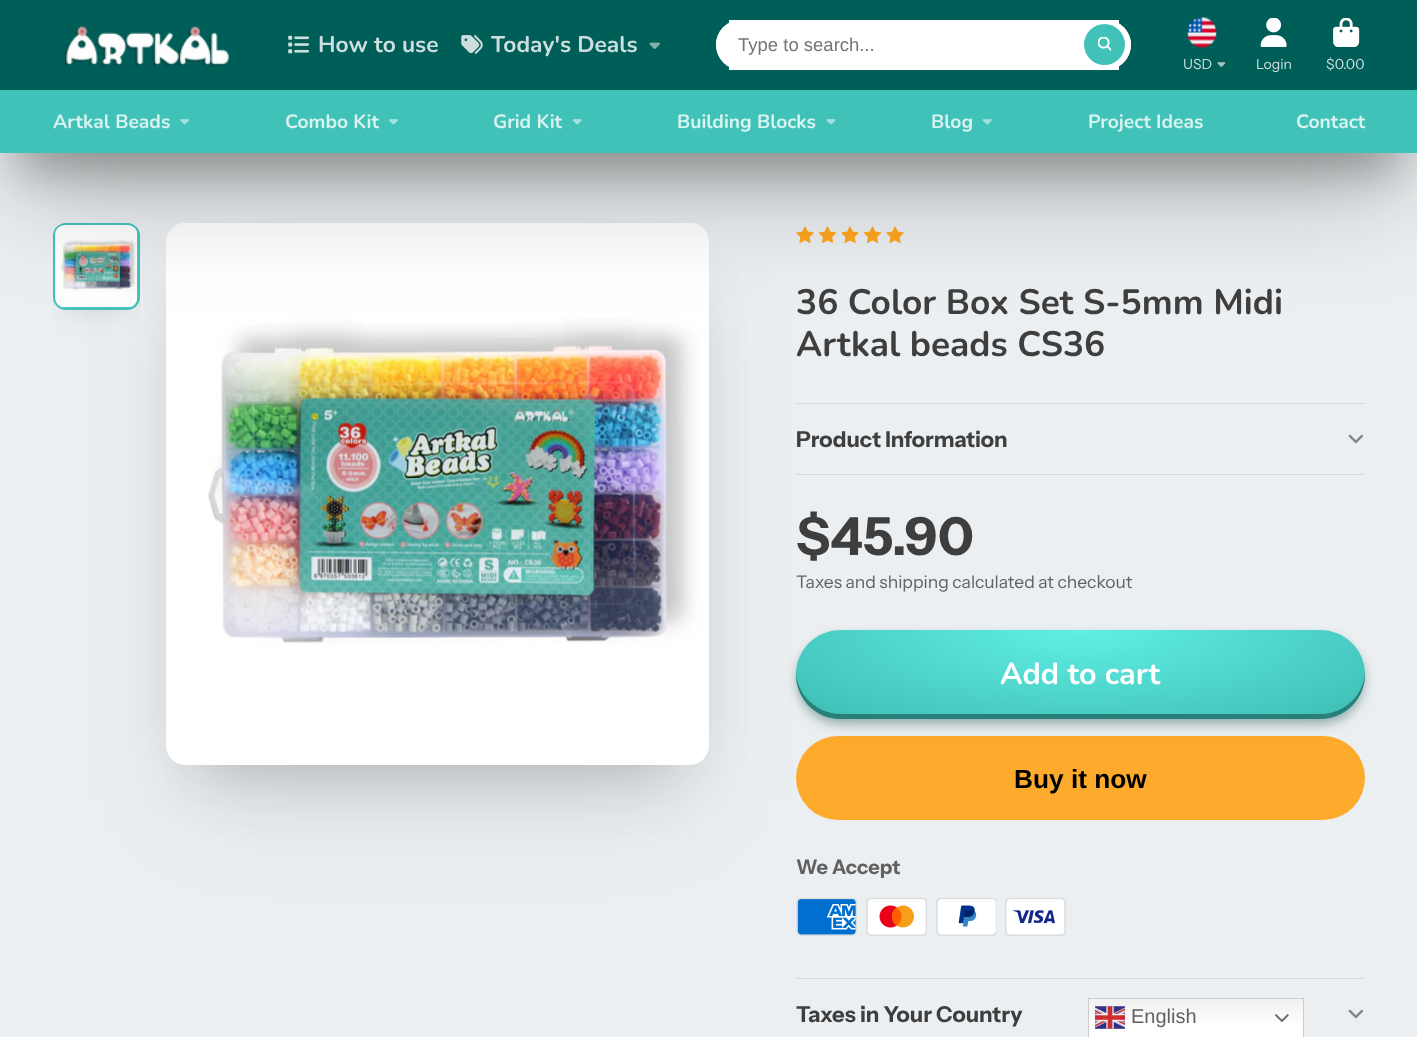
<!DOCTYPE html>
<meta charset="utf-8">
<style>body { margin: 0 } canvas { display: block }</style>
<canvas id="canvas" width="1417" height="1037"></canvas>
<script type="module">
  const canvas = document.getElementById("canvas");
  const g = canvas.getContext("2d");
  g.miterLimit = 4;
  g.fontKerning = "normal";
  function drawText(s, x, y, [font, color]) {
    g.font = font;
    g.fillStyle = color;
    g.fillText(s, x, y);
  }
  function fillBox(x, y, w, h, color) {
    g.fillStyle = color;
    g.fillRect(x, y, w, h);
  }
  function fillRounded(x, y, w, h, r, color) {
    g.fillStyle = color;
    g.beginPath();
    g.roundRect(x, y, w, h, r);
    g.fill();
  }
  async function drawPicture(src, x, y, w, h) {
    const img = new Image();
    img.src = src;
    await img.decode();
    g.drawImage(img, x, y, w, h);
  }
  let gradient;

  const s1 = ["bold 22.75px Nunito", "#CCDFDE"];
  const s2 = ["18.5px Liberation Sans", "#757575"];
  const s3 = ["14px Instrument Sans", "#CCDFDE"];
  const s4 = ["bold 19.25px Nunito", "#D9F3F1"];
  const s5 = ["bold 35.25px Nunito", "#3E3E3E"];
  const s6 = ["bold 21.9px Instrument Sans", "#3E3E3E"];
  const s7 = ["bold 52.5px Instrument Sans", "#3E3E3E"];
  const s8 = ["17.5px Instrument Sans", "#616162"];
  const s9 = ["bold 30.5px Nunito", "#FFFFFF"];
  const s10 = ["bold 26.25px Liberation Sans", "#000000"];
  const s11 = ["bold 20px Instrument Sans", "#616162"];
  const s12 = ["20px Liberation Sans", "#616162"];

  fillBox(0, 0, 1417, 1037, "#EBEFF1");
  g.save();
  g.beginPath();
  g.rect(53, 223, 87, 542);
  g.clip();
  g.fillStyle = "rgba(49, 49, 49, 0.3)";
  g.filter = "blur(17.5px)";
  g.beginPath();
  g.rect(70, 249, 53, 52);
  g.fill();
  g.filter = "none";
  g.restore();
  g.beginPath();
  g.roundRect(54.5, 224.5, 84, 84, 11.5);
  g.strokeStyle = "#41C2B9";
  g.lineWidth = 3;
  g.stroke();
  await drawPicture("pic15.png", 55, 225, 83, 83);
  g.fillStyle = "rgba(49, 49, 49, 0.3)";
  g.filter = "blur(33px)";
  g.beginPath();
  g.rect(199, 289, 477, 476);
  g.fill();
  g.filter = "none";
  g.fillStyle = "rgba(49, 49, 49, 0.1)";
  g.filter = "blur(54.5px)";
  g.beginPath();
  g.rect(189, 299, 499, 499);
  g.fill();
  g.filter = "none";
  fillRounded(166, 223, 543, 542, 20, "#FFFFFF");
  await drawPicture("pic14.png", 167, 223, 541, 541);
  await drawPicture("pic16.png", 796, 226, 18, 17);
  await drawPicture("pic17.png", 818, 226, 19, 17);
  await drawPicture("pic18.png", 841, 226, 18, 17);
  await drawPicture("pic17.png", 863, 226, 19, 17);
  await drawPicture("pic18.png", 886, 226, 18, 17);
  g.fillStyle = "rgba(49, 49, 49, 0.4)";
  g.filter = "blur(24px)";
  g.beginPath();
  g.rect(18, 50, 1382, 118);
  g.fill();
  g.filter = "none";
  g.fillStyle = "rgba(49, 49, 49, 0.3)";
  g.filter = "blur(54.5px)";
  g.beginPath();
  g.rect(18, 73, 1382, 117);
  g.fill();
  g.filter = "none";
  fillBox(0, 0, 1417, 90, "#005E58");
  await drawPicture("pic1.png", 64, 26, 165, 41);
  await drawPicture("pic2.png", 288, 35, 21, 19);
  drawText("How to use", 318, 52, s1);
  await drawPicture("pic3.png", 461, 35, 22, 19);
  drawText("Today's Deals", 491, 52, s1);
  await drawPicture("pic4.png", 649, 42, 11, 7);
  fillRounded(716, 20, 415, 50, 25, "#FFFFFF");
  fillBox(729, 20, 390, 50, "#FFFFFF");
  fillRounded(716, 20, 415, 49, 24.5, "#FFFFFF");
  drawText("Type to search...", 738, 51, s2);
  g.fillStyle = "#41C2B9";
  g.beginPath();
  g.arc(1104.5, 44.5, 20.5, 0, Math.PI * 2);
  g.fill();
  await drawPicture("pic5.png", 1098, 37, 13, 14);
  await drawPicture("pic6.png", 1187, 17, 30, 31);
  drawText("USD", 1183, 69, s3);
  await drawPicture("pic7.png", 1217, 62, 9, 5);
  await drawPicture("pic8.png", 1260, 18, 27, 29);
  drawText("Login", 1256, 69, s3);
  await drawPicture("pic9.png", 1333, 18, 27, 29);
  drawText("$0.00", 1326, 69, s3);
  fillBox(0, 90, 1417, 63, "#41C2B9");
  drawText("Artkal Beads", 53, 128, s4);
  await drawPicture("pic10.png", 180, 119, 10, 6);
  drawText("Combo Kit", 285, 128, s4);
  await drawPicture("pic11.png", 389, 119, 9, 6);
  drawText("Grid Kit", 493, 128, s4);
  await drawPicture("pic12.png", 572, 119, 10, 6);
  drawText("Building Blocks", 677, 128, s4);
  await drawPicture("pic13.png", 826, 119, 10, 6);
  drawText("Blog", 931, 128, s4);
  await drawPicture("pic12.png", 982, 119, 10, 6);
  drawText("Project Ideas", 1088, 128, s4);
  drawText("Contact", 1296, 128, s4);
  drawText("36 Color Box Set S-5mm Midi", 796, 314, s5);
  drawText("Artkal beads CS36", 796, 356, s5);
  fillBox(796, 403, 569, 1, "#D9D9D9");
  fillBox(796, 474, 569, 1, "#D9D9D9");
  drawText("Product Information", 796, 447, s6);
  await drawPicture("pic19.png", 1348, 434, 15, 10);
  drawText("$45.90", 796, 555, s7);
  drawText("Taxes and shipping calculated at checkout", 796, 588, s8);
  fillRounded(796, 736, 569, 84, 42, "#FEAA2C");
  g.fillStyle = "rgba(26, 80, 76, 0.15)";
  g.filter = "blur(9px)";
  g.beginPath();
  g.roundRect(801, 644, 559, 80, 40);
  g.fill();
  g.filter = "none";
  g.fillStyle = "rgba(26, 80, 76, 0.3)";
  g.filter = "blur(4.5px)";
  g.beginPath();
  g.roundRect(796, 635, 569, 89, 44.5);
  g.fill();
  g.filter = "none";
  g.save();
  g.beginPath();
  g.roundRect(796, 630, 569, 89, 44.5);
  g.clip();
  g.fillStyle = "rgba(26, 80, 76, 0.15)";
  g.filter = "blur(9px)";
  g.beginPath();
  g.roundRect(801, 644, 559, 80, 40);
  g.fill();
  g.filter = "none";
  g.fillStyle = "rgba(26, 80, 76, 0.3)";
  g.filter = "blur(4.5px)";
  g.beginPath();
  g.roundRect(796, 635, 569, 89, 44.5);
  g.fill();
  g.filter = "none";
  g.restore();
  gradient = g.createRadialGradient(1081, 2010, 0, 1081, 2010, 402);
  gradient.addColorStop(0, "#60EFE5");
  gradient.addColorStop(0.9, "#41C2B9");
  g.fillStyle = gradient;
  g.beginPath();
  g.roundRect(796, 630, 569, 89, 44.5);
  g.save();
  g.clip();
  g.scale(1, 126 / 402);
  g.fillRect(0, 0, 1417, 3309);
  g.restore();
  g.fillStyle = "#297F79";
  g.beginPath();
  g.moveTo(796, 672);
  g.lineTo(796, 674);
  g.bezierCurveTo(796, 699, 816, 719, 840, 719);
  g.lineTo(1320, 719);
  g.bezierCurveTo(1345, 719, 1365, 699, 1365, 674);
  g.lineTo(1365, 672);
  g.bezierCurveTo(1364, 695, 1344, 714, 1321, 714);
  g.lineTo(841, 714);
  g.bezierCurveTo(817, 714, 797, 695, 796, 672);
  g.closePath();
  g.fill();
  drawText("Add to cart", 1000, 684, s9);
  drawText("Buy it now", 1014, 788, s10);
  drawText("We Accept", 796, 874, s11);
  await drawPicture("pic20.png", 796, 898, 61, 38);
  await drawPicture("pic21.png", 866, 898, 61, 38);
  await drawPicture("pic22.png", 936, 898, 60, 38);
  await drawPicture("pic23.png", 1005, 898, 61, 38);
  fillBox(796, 978, 569, 1, "#D9D9D9");
  drawText("Taxes in Your Country", 796, 1022, s6);
  await drawPicture("pic19.png", 1348, 1009, 15, 10);
  gradient = g.createLinearGradient(1196, 998, 1196, 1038);
  gradient.addColorStop(0, "#EFEFEF");
  gradient.addColorStop(0.7, "#FFFFFF");
  g.fillStyle = gradient;
  g.fillRect(1089, 999, 214, 38);
  g.strokeStyle = "#CCCCCC";
  g.lineWidth = 1;
  g.strokeRect(1088.5, 998.5, 215, 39);
  await drawPicture("pic24.png", 1095, 1006, 30, 23);
  drawText("English", 1131, 1023, s12);
  await drawPicture("pic25.png", 1275, 1014, 14, 9);
</script>
